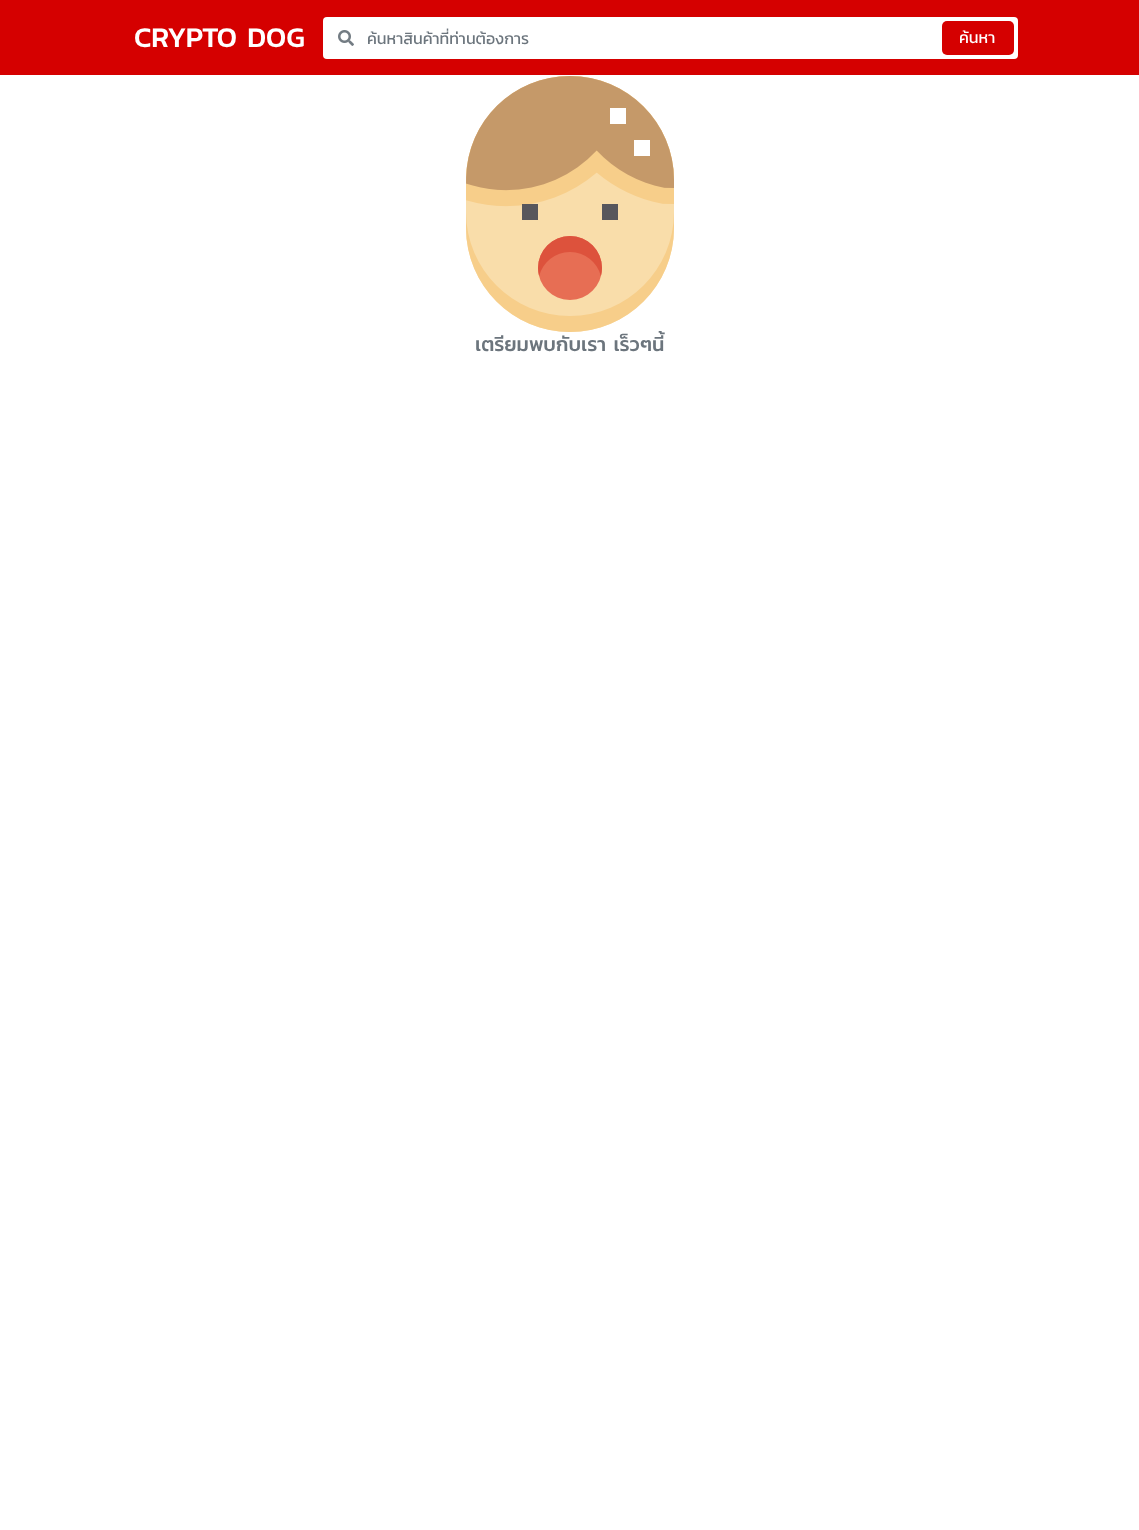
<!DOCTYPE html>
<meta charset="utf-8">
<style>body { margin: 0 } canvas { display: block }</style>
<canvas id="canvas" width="1139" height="1530"></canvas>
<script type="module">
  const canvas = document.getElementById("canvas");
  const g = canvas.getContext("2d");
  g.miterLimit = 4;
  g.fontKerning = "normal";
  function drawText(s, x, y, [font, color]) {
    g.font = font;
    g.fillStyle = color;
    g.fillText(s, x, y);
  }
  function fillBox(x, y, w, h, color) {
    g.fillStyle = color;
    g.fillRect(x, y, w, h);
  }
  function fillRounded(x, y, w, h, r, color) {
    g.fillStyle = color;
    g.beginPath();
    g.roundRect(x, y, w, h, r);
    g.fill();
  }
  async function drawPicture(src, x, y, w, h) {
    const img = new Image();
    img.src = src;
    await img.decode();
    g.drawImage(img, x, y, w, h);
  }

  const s1 = ["500 28.75px Kanit", "#FFFFFF"];
  const s2 = ["16px Kanit", "#6C757D"];
  const s3 = ["16px Kanit", "#FFFFFF"];
  const s4 = ["500 20px Kanit", "#6C757D"];

  fillBox(0, 0, 1139, 1530, "#FFFFFF");
  fillBox(0, 0, 1139, 75, "#D50000");
  drawText("CRYPTO DOG", 134, 47, s1);
  fillRounded(323, 17, 695, 42, 4, "#FFFFFF");
  await drawPicture("pic1.png", 338, 30, 16, 16);
  g.save();
  g.beginPath();
  g.rect(367, 27, 555, 23);
  g.clip();
  drawText("ค้นหาสินค้าที่ท่านต้องการ", 367, 44, s2);
  g.restore();
  fillRounded(942, 21, 72, 34, 5, "#D50000");
  drawText("ค้นหา", 959, 43, s3);
  await drawPicture("pic2.png", 466, 76, 208, 256);
  drawText("เตรียมพบกับเรา เร็วๆนี้", 475, 351, s4);
</script>
